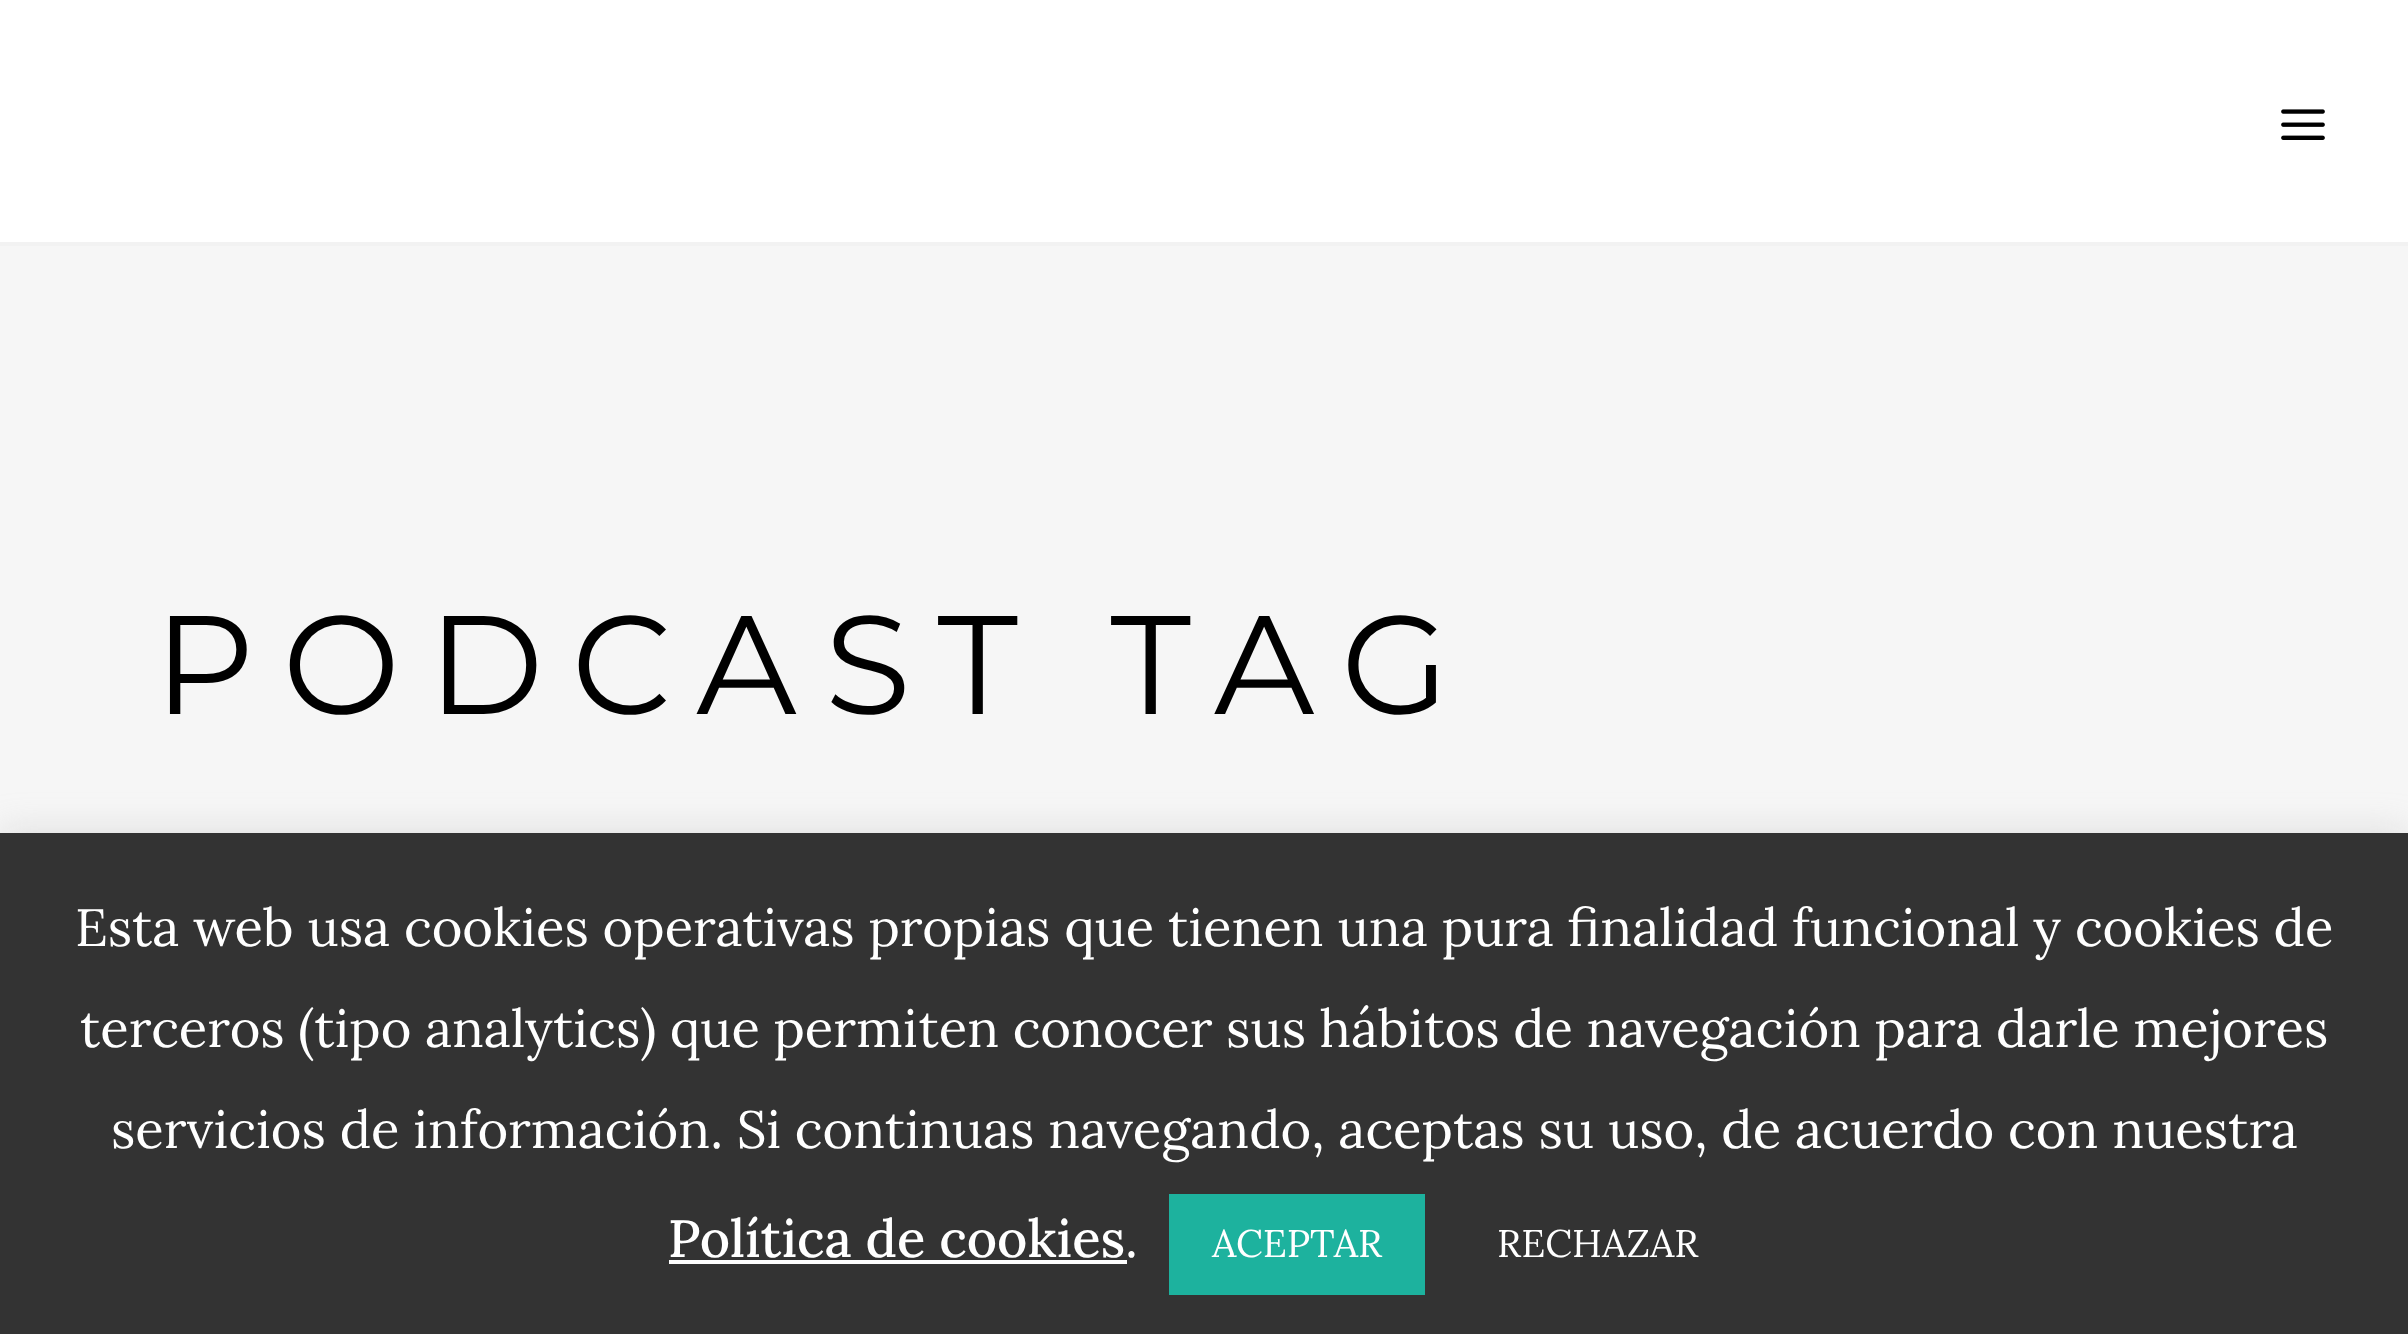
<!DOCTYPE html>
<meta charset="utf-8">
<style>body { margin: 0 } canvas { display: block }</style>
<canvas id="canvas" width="2408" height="1334"></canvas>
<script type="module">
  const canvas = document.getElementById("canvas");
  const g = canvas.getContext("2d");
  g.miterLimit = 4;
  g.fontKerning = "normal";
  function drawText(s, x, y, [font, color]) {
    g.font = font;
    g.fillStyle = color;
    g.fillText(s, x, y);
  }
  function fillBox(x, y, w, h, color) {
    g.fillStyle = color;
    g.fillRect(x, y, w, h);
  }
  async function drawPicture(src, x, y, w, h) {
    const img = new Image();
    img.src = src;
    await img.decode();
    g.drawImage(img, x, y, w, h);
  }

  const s1 = ["140px Montserrat", "#000000"];
  const s2 = ["52.5px Lora", "#FFFFFF"];
  const s3 = ["500 52.5px Lora", "#FFFFFF"];
  const s4 = ["38.5px Lora", "#FFFFFF"];

  fillBox(0, 0, 2408, 1334, "#FFFFFF");
  fillBox(0, 242, 2408, 4, "#F2F2F2");
  await drawPicture("pic1.png", 2281, 109, 44, 31);
  fillBox(0, 246, 2408, 587, "#F6F6F6");
  g.letterSpacing = "28px";
  drawText("PODCAST TAG", 154, 714, s1);
  g.fillStyle = "rgba(172, 171, 171, 0.3)";
  g.filter = "blur(17.5px)";
  g.beginPath();
  g.rect(0, 830, 2408, 504);
  g.fill();
  g.filter = "none";
  fillBox(0, 833, 2408, 501, "#333333");
  g.letterSpacing = "0px";
  drawText("Esta web usa cookies operativas propias que tienen una pura finalidad funcional y cookies de", 75, 946, s2);
  g.wordSpacing = "-0.25px";
  drawText("terceros (tipo analytics) que permiten conocer sus hábitos de navegación para darle mejores", 80, 1047, s2);
  g.wordSpacing = "0px";
  drawText("servicios de información. Si continuas navegando, aceptas su uso, de acuerdo con nuestra", 111, 1148, s2);
  drawText("Política de cookies", 668, 1257, s3);
  fillBox(669, 1260, 458, 4, "#FFFFFF");
  drawText(".", 1125, 1257, s2);
  fillBox(1169, 1194, 256, 101, "#1DB29E");
  drawText("ACEPTAR", 1212, 1257, s4);
  drawText("RECHAZAR", 1497, 1257, s4);
</script>
